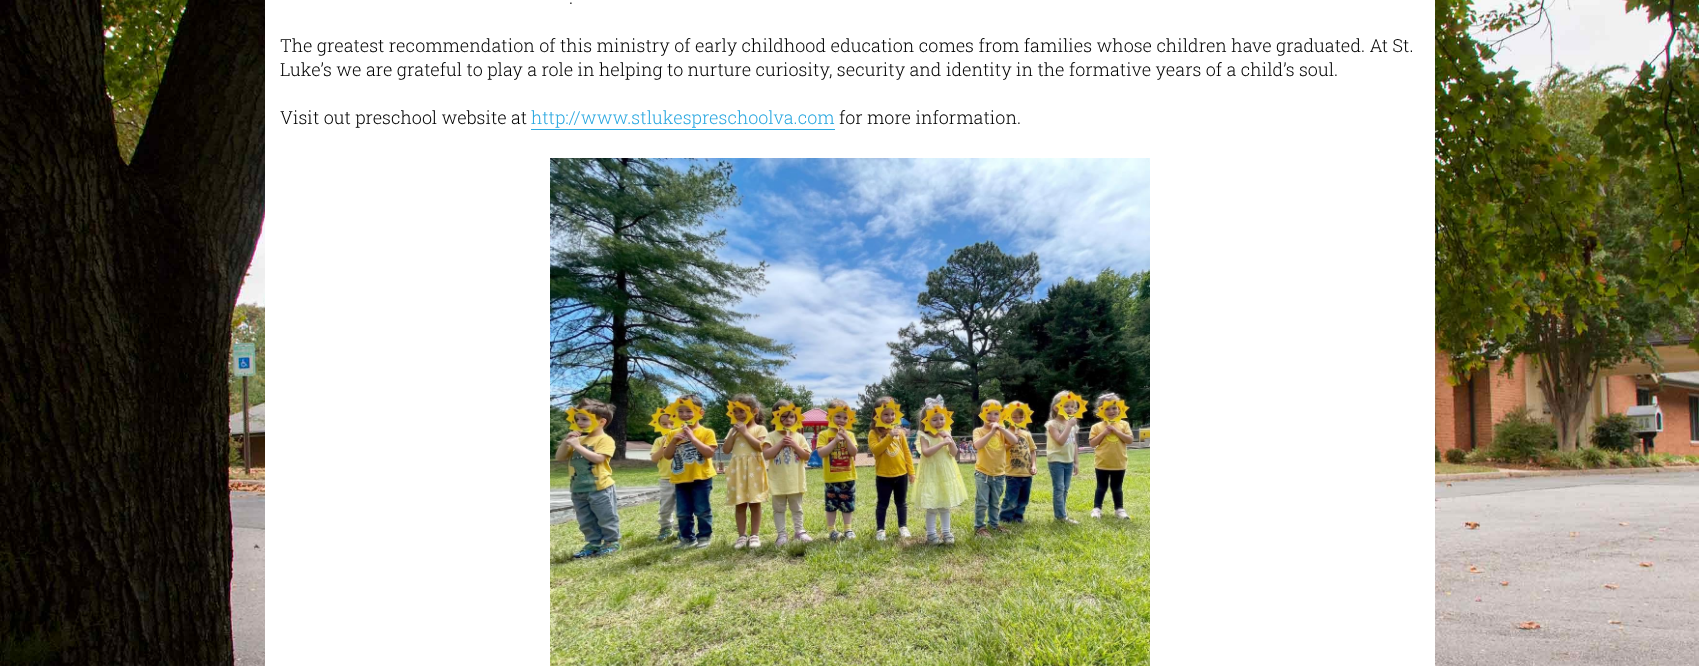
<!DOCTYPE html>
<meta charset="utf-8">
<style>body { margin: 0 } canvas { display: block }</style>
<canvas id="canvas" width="1699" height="666"></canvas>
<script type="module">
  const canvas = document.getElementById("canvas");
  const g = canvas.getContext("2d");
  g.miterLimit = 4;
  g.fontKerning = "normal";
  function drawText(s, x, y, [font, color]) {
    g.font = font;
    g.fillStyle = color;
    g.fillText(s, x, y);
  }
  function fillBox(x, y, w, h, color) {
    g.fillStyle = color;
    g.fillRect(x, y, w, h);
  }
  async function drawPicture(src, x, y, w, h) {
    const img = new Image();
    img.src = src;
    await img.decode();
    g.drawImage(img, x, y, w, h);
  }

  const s1 = ["300 18px Roboto Slab", "#000000"];
  const s2 = ["300 18px Roboto Slab", "#2BA8E0"];

  fillBox(0, 0, 1699, 666, "#FFFFFF");
  await drawPicture("pic1.png", 0, 665, 1699, 1);
  await drawPicture("pic2.png", 0, 0, 1699, 666);
  fillBox(265, 0, 1170, 666, "#FFFFFF");
  drawText(".", 569, 4, s1);
  drawText("The greatest recommendation of this ministry of early childhood education comes from families whose children have graduated. At St.", 280, 52, s1);
  drawText("Luke’s we are grateful to play a role in helping to nurture curiosity, security and identity in the formative years of a child’s soul.", 280, 76, s1);
  drawText("Visit out preschool website at", 280, 124, s1);
  drawText("http://www.stlukespreschoolva.com", 531, 124, s2);
  fillBox(531, 129, 304, 1, "#2BA8E0");
  drawText("for more information.", 839, 124, s1);
  await drawPicture("pic3.png", 550, 158, 600, 508);
</script>
